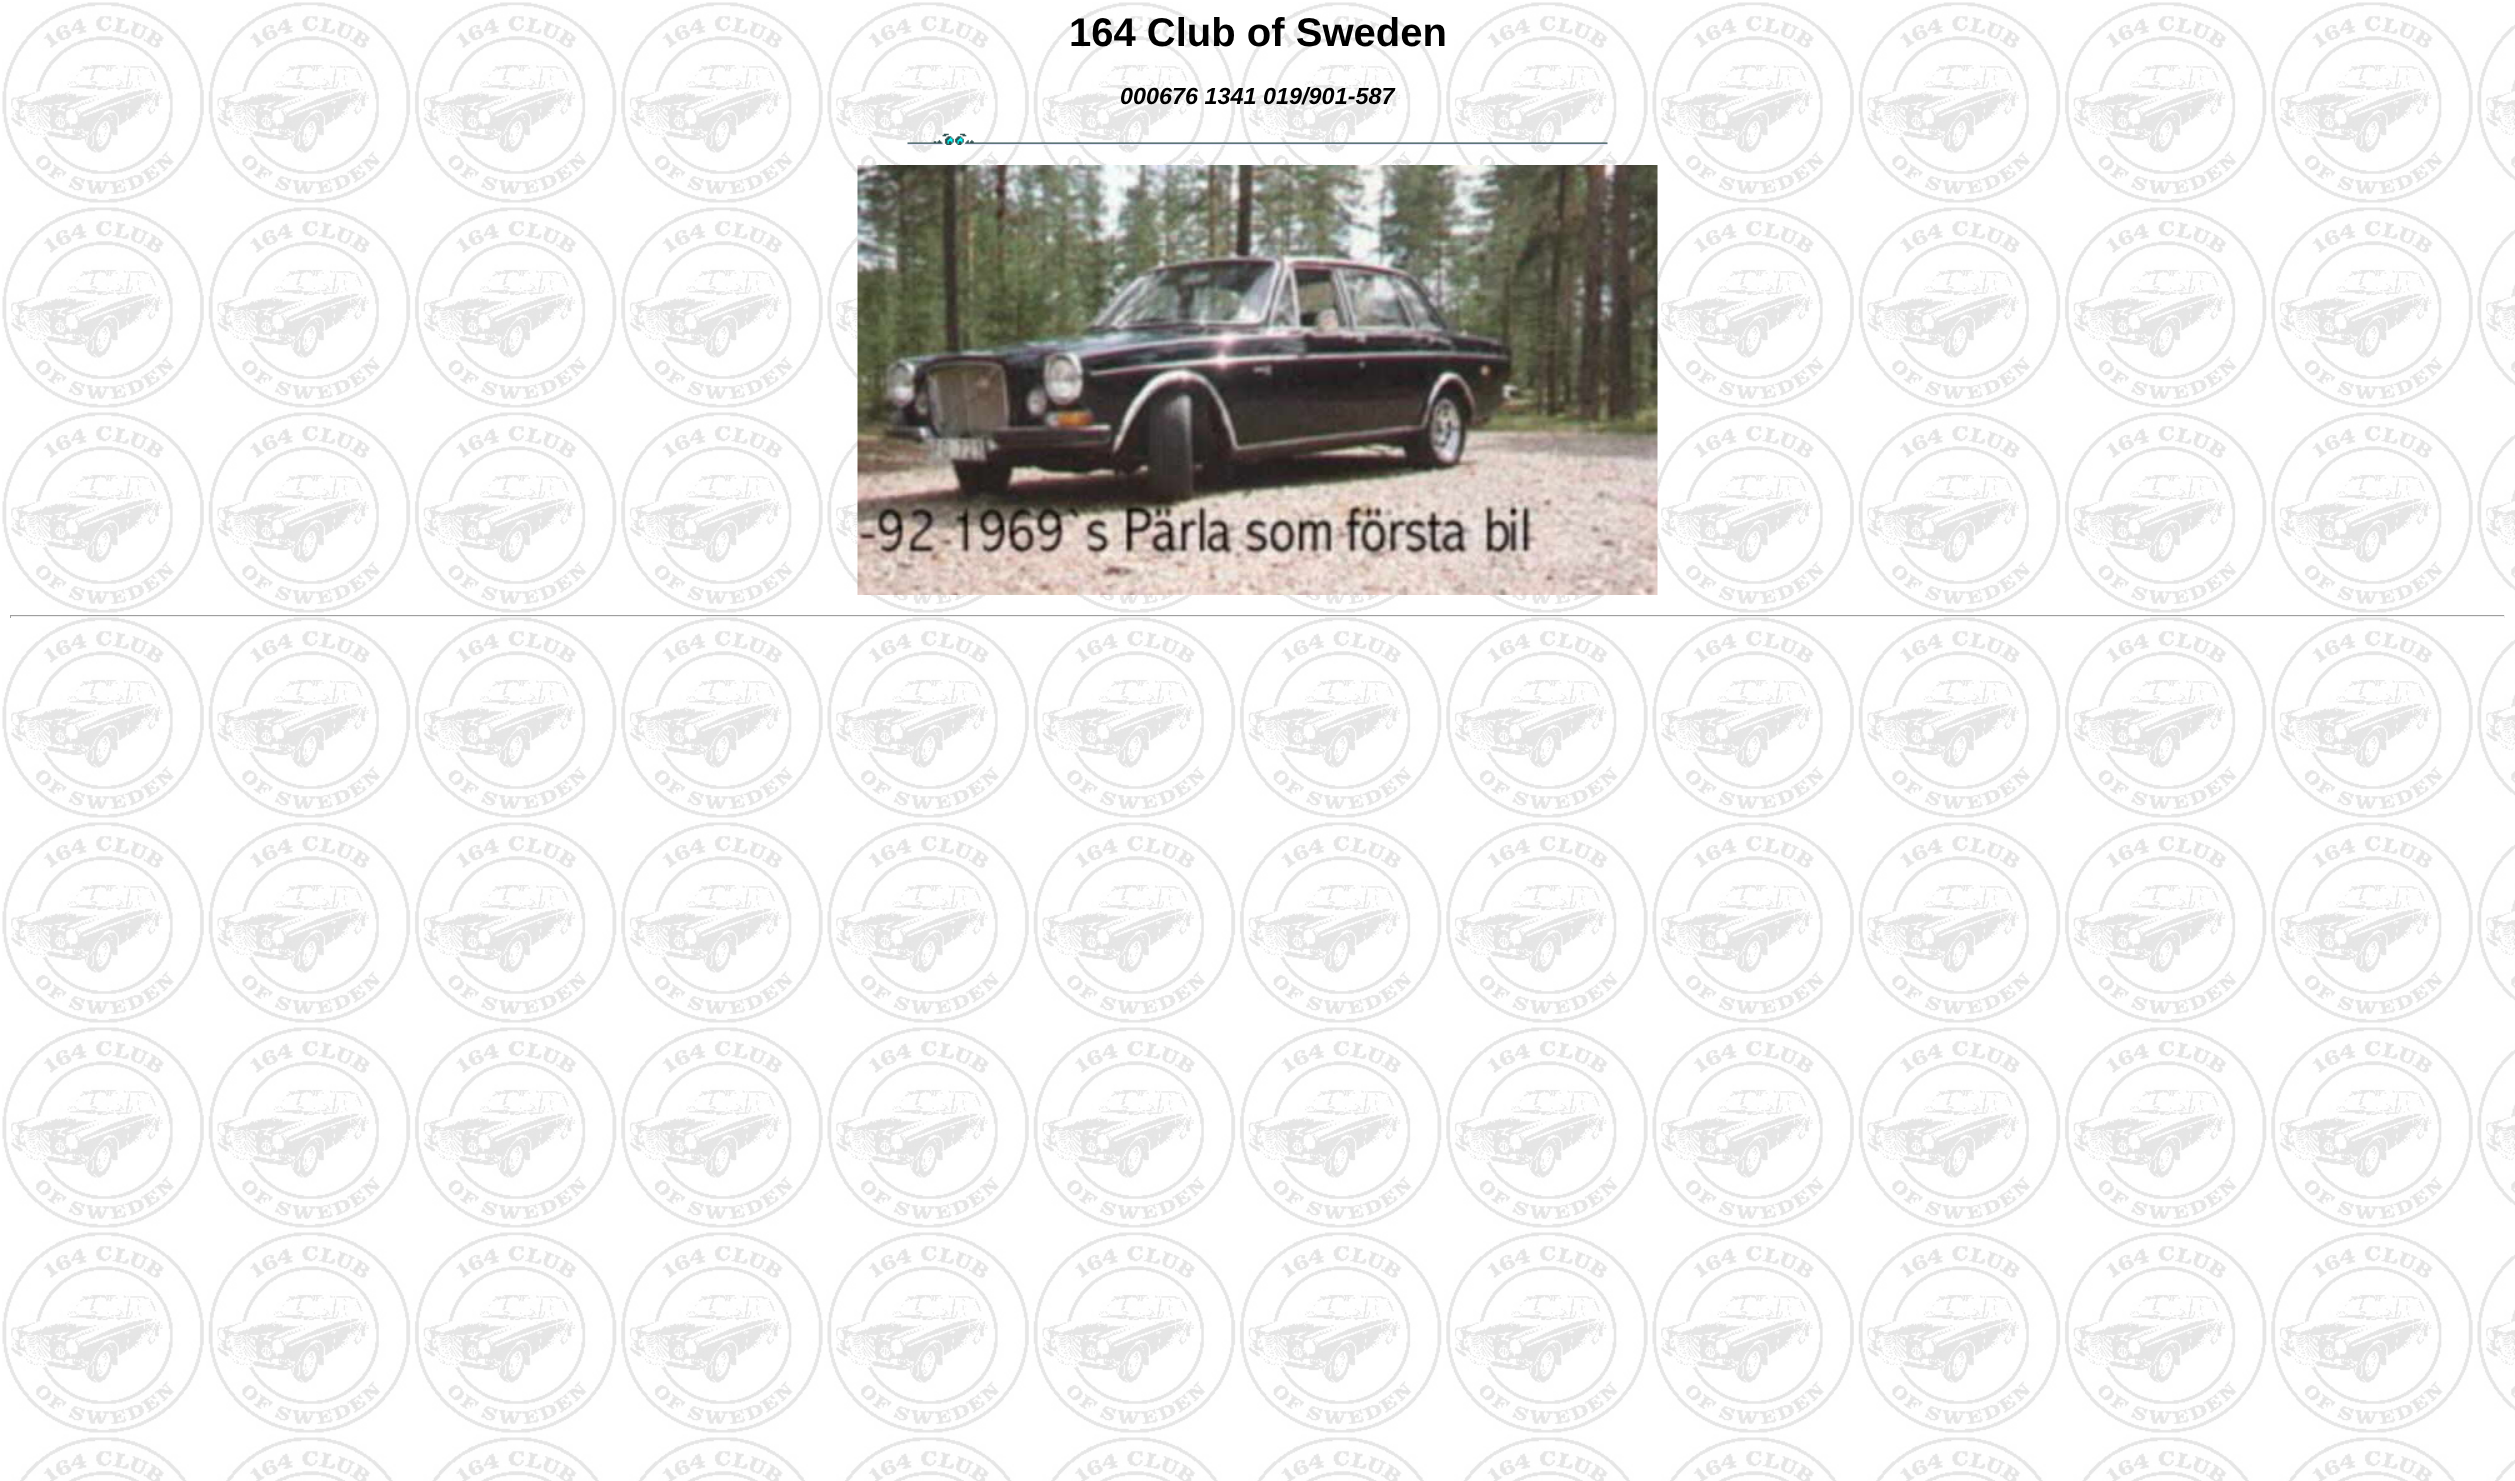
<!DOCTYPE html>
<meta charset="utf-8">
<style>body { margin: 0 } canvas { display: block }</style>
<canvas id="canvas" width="2515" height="1481"></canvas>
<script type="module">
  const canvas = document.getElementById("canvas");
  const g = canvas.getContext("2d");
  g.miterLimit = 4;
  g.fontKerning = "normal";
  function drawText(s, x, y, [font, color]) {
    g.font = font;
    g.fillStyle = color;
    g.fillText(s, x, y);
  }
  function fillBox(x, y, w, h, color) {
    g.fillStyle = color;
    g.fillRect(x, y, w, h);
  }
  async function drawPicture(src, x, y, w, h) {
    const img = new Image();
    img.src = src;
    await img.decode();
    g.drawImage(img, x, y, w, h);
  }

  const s1 = ["bold 40px Liberation Sans", "#000000"];
  const s2 = ["italic bold 23.4px Liberation Sans", "#000000"];

  fillBox(0, 0, 2515, 1481, "#FFFFFF");
  await drawPicture("pic1.png", 2, 2, 2513, 1479);
  drawText("164 Club of Sweden", 1069, 46, s1);
  drawText("000676 1341 019/901-587", 1120, 104, s2);
  await drawPicture("pic2.png", 907, 133, 701, 12);
  await drawPicture("pic3.png", 857, 165, 801, 430);
  fillBox(10, 615, 2495, 1, "#9F9F9F");
  fillBox(2504, 615, 1, 3, "#EEEEEE");
  fillBox(10, 616, 2495, 1, "#EEEEEE");
  fillBox(10, 615, 1, 3, "#9F9F9F");
</script>
